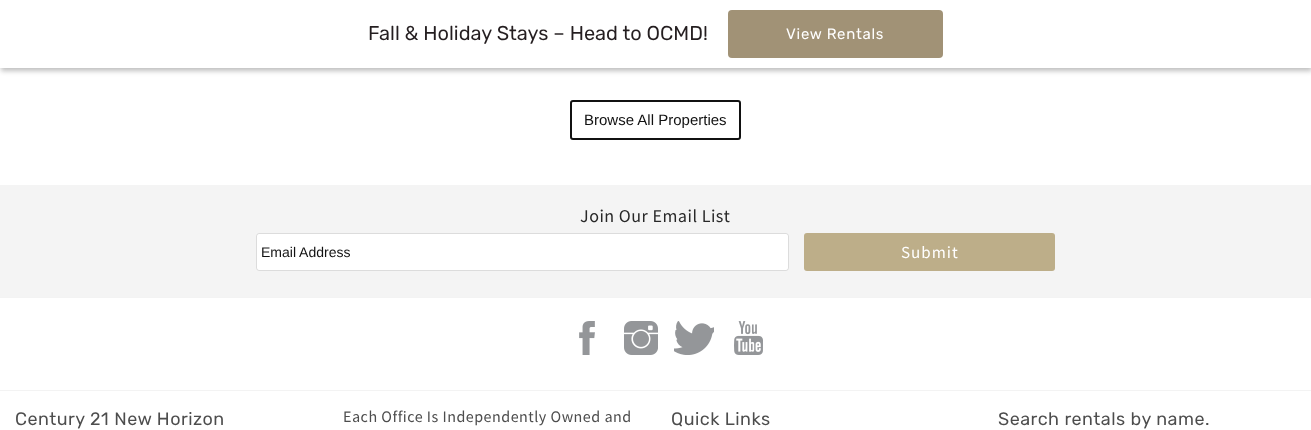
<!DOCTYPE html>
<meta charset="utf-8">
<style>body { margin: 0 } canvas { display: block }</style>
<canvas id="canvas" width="1311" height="430"></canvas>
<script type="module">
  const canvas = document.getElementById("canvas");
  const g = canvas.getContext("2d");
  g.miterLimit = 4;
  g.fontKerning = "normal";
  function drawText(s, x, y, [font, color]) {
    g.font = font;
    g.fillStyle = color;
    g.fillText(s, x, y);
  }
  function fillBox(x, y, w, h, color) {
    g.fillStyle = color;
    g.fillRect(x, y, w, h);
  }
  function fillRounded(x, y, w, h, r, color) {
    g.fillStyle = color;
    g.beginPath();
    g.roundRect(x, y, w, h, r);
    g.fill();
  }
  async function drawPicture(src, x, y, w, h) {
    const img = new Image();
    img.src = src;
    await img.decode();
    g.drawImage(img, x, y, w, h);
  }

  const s1 = ["20px Rubik", "#241E20"];
  const s2 = ["15px Rubik", "#FFFFFF"];
  const s3 = ["15px Liberation Sans", "#111111"];
  const s4 = ["18px Source Sans Pro", "#282828"];
  const s5 = ["14px Liberation Sans", "#111111"];
  const s6 = ["17px Source Sans Pro", "#FFFFFF"];
  const s7 = ["18px Rubik", "#4D4D4D"];
  const s8 = ["16px Source Sans Pro", "#4D4D4D"];

  fillBox(0, 0, 1311, 430, "#FFFFFF");
  g.fillStyle = "rgba(0, 0, 0, 0.25)";
  g.filter = "blur(2.5px)";
  g.beginPath();
  g.rect(1, 3, 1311, 68);
  g.fill();
  g.filter = "none";
  fillBox(0, 0, 1311, 68, "#FFFFFF");
  drawText("Fall & Holiday Stays – Head to OCMD!", 368, 40, s1);
  fillRounded(728, 10, 215, 48, 4, "#A19276");
  g.letterSpacing = "0.75px";
  drawText("View Rentals", 786, 39, s2);
  g.beginPath();
  g.roundRect(571, 101, 169, 38, 2);
  g.strokeStyle = "#111111";
  g.lineWidth = 2;
  g.stroke();
  g.letterSpacing = "0px";
  drawText("Browse All Properties", 584, 125, s3);
  fillBox(0, 185, 1311, 112, "#F4F4F4");
  g.letterSpacing = "0.5px";
  drawText("Join Our Email List", 580, 222, s4);
  fillRounded(256, 233, 533, 38, 3, "#FFFFFF");
  g.beginPath();
  g.roundRect(256.5, 233.5, 532, 37, 2.5);
  g.strokeStyle = "rgba(17, 17, 17, 0.15)";
  g.lineWidth = 1;
  g.stroke();
  g.letterSpacing = "0px";
  drawText("Email Address", 261, 257, s5);
  fillRounded(804, 233, 251, 38, 3, "#BDAE89");
  g.letterSpacing = "1px";
  drawText("Submit", 901, 258, s6);
  fillBox(0, 297, 1311, 1, "#F3F3F3");
  fillBox(0, 390, 1311, 1, "#F3F3F3");
  await drawPicture("pic1.png", 579, 321, 16, 34);
  await drawPicture("pic2.png", 624, 321, 34, 34);
  await drawPicture("pic3.png", 674, 321, 40, 34);
  await drawPicture("pic4.png", 734, 321, 29, 34);
  g.letterSpacing = "0.5px";
  drawText("Century 21 New Horizon", 15, 425, s7);
  drawText("Each Office Is Independently Owned and", 343, 422, s8);
  drawText("Quick Links", 671, 425, s7);
  drawText("Search rentals by name.", 998, 425, s7);
</script>
